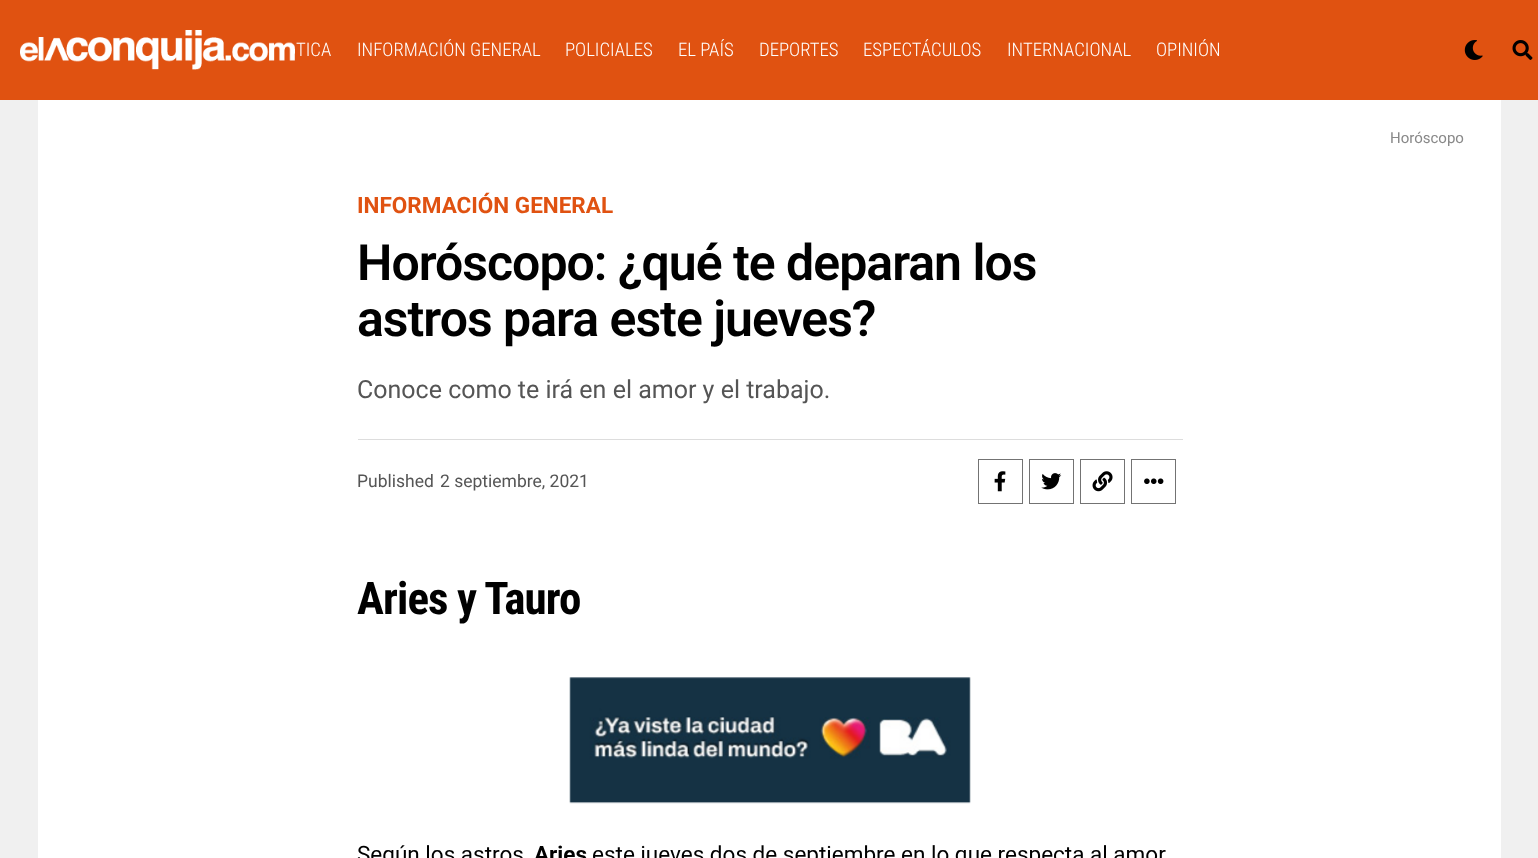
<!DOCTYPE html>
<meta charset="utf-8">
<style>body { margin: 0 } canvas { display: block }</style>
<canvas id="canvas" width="1538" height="858"></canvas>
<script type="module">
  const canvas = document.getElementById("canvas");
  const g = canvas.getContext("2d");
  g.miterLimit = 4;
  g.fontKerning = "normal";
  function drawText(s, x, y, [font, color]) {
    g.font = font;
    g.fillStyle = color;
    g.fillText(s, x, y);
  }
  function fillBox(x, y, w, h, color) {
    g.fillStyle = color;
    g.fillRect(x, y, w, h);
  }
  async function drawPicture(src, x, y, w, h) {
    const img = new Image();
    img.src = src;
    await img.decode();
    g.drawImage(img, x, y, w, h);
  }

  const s1 = ["300 18.75px Roboto Condensed", "#FFFFFF"];
  const s2 = ["15px Roboto", "#888888"];
  const s3 = ["bold 22.5px Roboto", "#E05211"];
  const s4 = ["600 50px Roboto", "#000000"];
  const s5 = ["25px Roboto", "#555555"];
  const s6 = ["17.5px Roboto", "#555555"];
  const s7 = ["bold 45px Roboto Condensed", "#000000"];
  const s8 = ["22.5px Roboto", "#000000"];
  const s9 = ["bold 22.5px Roboto", "#000000"];

  fillBox(0, 0, 1538, 858, "#F0F0F0");
  fillBox(0, 0, 1538, 100, "#E05211");
  await drawPicture("pic1.png", 20, 30, 275, 40);
  drawText("TICA", 296, 56, s1);
  drawText("INFORMACIÓN GENERAL", 357, 56, s1);
  drawText("POLICIALES", 565, 56, s1);
  drawText("EL PAÍS", 678, 56, s1);
  drawText("DEPORTES", 759, 56, s1);
  drawText("ESPECTÁCULOS", 863, 56, s1);
  drawText("INTERNACIONAL", 1007, 56, s1);
  drawText("OPINIÓN", 1156, 56, s1);
  await drawPicture("pic2.png", 1464, 40, 19, 20);
  await drawPicture("pic3.png", 1512, 40, 21, 20);
  fillBox(38, 100, 1463, 758, "#FFFFFF");
  drawText("Horóscopo", 1390, 143, s2);
  drawText("INFORMACIÓN GENERAL", 357, 213, s3);
  g.letterSpacing = "-1px";
  drawText("Horóscopo: ¿qué te deparan los", 357, 280, s4);
  drawText("astros para este jueves?", 357, 336, s4);
  g.letterSpacing = "0px";
  drawText("Conoce como te irá en el amor y el trabajo.", 357, 398, s5);
  fillBox(358, 439, 825, 1, "#DDDDDD");
  drawText("Published", 357, 487, s6);
  drawText("2 septiembre, 2021", 440, 487, s6);
  g.strokeStyle = "#737373";
  g.strokeRect(978.5, 459.5, 44, 44);
  await drawPicture("pic4.png", 994, 471, 12, 21);
  g.strokeRect(1029.5, 459.5, 44, 44);
  await drawPicture("pic5.png", 1041, 473, 21, 17);
  g.strokeRect(1080.5, 459.5, 44, 44);
  await drawPicture("pic6.png", 1092, 471, 21, 21);
  g.strokeRect(1131.5, 459.5, 44, 44);
  await drawPicture("pic7.png", 1144, 478, 20, 6);
  g.letterSpacing = "-0.9px";
  drawText("Aries y Tauro", 357, 614, s7);
  await drawPicture("pic8.png", 569, 677, 402, 127);
  g.letterSpacing = "0px";
  drawText("Según los astros", 357, 862, s8);
  drawText("Aries", 534, 862, s9);
  drawText("este jueves dos de septiembre en lo que respecta al amor", 592, 862, s8);
</script>
